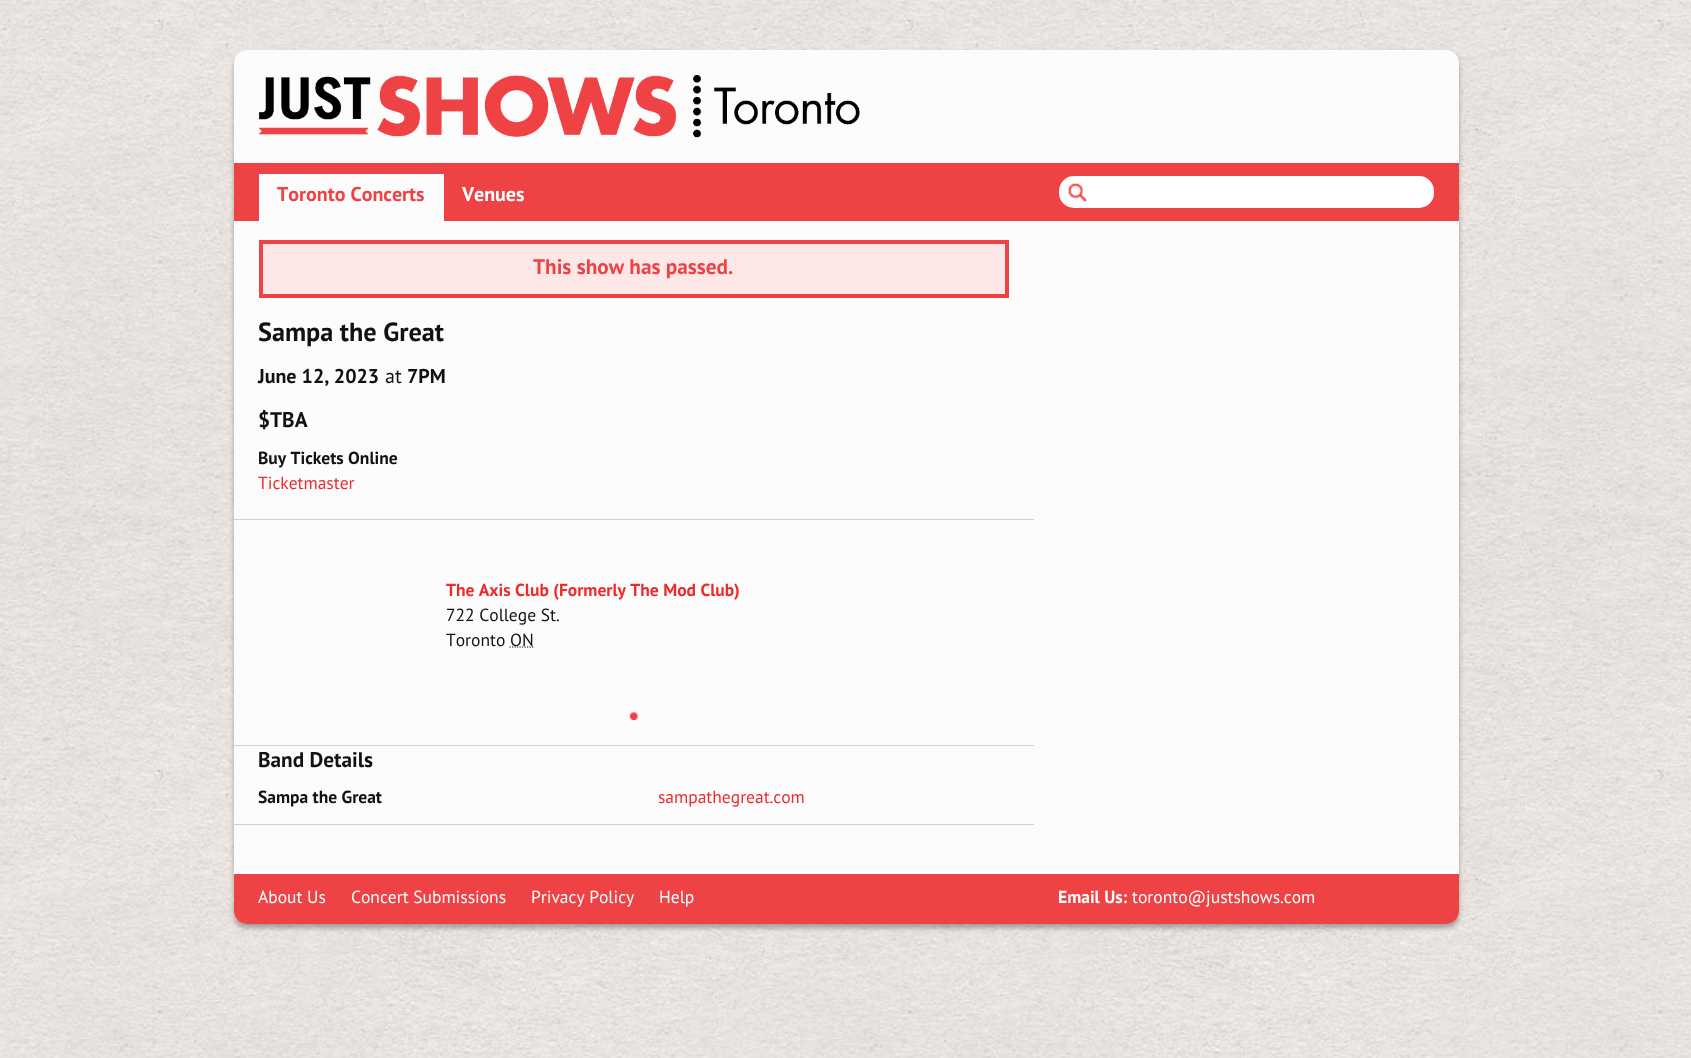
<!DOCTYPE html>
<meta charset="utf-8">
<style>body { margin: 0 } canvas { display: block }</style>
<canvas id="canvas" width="1691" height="1058"></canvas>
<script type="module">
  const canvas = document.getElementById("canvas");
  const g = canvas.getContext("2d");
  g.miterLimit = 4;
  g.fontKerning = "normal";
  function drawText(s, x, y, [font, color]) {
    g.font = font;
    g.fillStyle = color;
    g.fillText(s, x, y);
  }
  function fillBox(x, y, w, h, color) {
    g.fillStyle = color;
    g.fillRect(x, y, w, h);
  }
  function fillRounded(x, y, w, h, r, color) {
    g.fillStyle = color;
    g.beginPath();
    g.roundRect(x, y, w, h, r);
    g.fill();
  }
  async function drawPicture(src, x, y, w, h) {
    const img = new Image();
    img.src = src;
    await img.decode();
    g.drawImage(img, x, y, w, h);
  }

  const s1 = ["bold 20px PT Sans", "#EF4244"];
  const s2 = ["bold 20px PT Sans", "#FFFFFF"];
  const s3 = ["bold 21.25px PT Sans", "#EF4244"];
  const s4 = ["bold 26.25px PT Sans", "#111111"];
  const s5 = ["bold 20px PT Sans", "#111111"];
  const s6 = ["20px PT Sans", "#111111"];
  const s7 = ["bold 21.25px PT Sans", "#111111"];
  const s8 = ["bold 17.5px PT Sans", "#111111"];
  const s9 = ["17.5px PT Sans", "#ED2B2C"];
  const s10 = ["bold 17.5px PT Sans", "#ED2B2C"];
  const s11 = ["17.5px PT Sans", "#111111"];
  const s12 = ["17.5px PT Sans", "#FFFFFF"];
  const s13 = ["bold 17.5px PT Sans", "#FFFFFF"];

  fillBox(0, 0, 1691, 1058, "#FFFFFF");
  await drawPicture("pic1.png", 0, 0, 1691, 1058);
  g.fillStyle = "rgba(0, 0, 0, 0.3)";
  g.filter = "blur(2.5px)";
  g.beginPath();
  g.roundRect(234, 54, 1225, 874, 13);
  g.fill();
  g.filter = "none";
  fillRounded(234, 50, 1225, 874, 13, "#FCFCFC");
  await drawPicture("pic2.png", 258, 75, 602, 63);
  fillBox(234, 163, 1225, 58, "#EF4244");
  fillBox(259, 174, 185, 47, "#FCFCFC");
  drawText("Toronto Concerts", 277, 201, s1);
  drawText("Venues", 462, 201, s2);
  fillRounded(1059, 176, 375, 32, 15, "#FFFFFF");
  await drawPicture("pic3.png", 1068, 183, 19, 19);
  g.fillStyle = "#FDE7E7";
  g.beginPath();
  g.rect(261, 242, 746, 54);
  g.fill();
  g.strokeStyle = "#EF4244";
  g.lineWidth = 4;
  g.stroke();
  drawText("This show has passed.", 533, 274, s3);
  drawText("Sampa the Great", 258, 341, s4);
  drawText("June 12, 2023", 258, 383, s5);
  drawText("at", 385, 383, s6);
  drawText("7PM", 407, 383, s5);
  drawText("$TBA", 258, 427, s7);
  drawText("Buy Tickets Online", 258, 464, s8);
  drawText("Ticketmaster", 258, 489, s9);
  fillBox(234, 519, 800, 1, "#D0D0D0");
  fillBox(234, 745, 800, 1, "#D0D0D0");
  drawText("The Axis Club (Formerly The Mod Club)", 446, 596, s10);
  drawText("722 College St.", 446, 621, s11);
  drawText("Toronto", 446, 646, s11);
  g.beginPath();
  g.moveTo(509.5, 647);
  g.lineTo(533.5, 647);
  g.strokeStyle = "#111111";
  g.lineWidth = 1.2;
  g.setLineDash([1.25, 1.25]);
  g.stroke();
  drawText("ON", 510, 646, s11);
  await drawPicture("pic4.png", 628, 711, 11, 9);
  drawText("Band Details", 258, 767, s7);
  fillBox(234, 824, 800, 1, "#D0D0D0");
  drawText("Sampa the Great", 258, 803, s8);
  drawText("sampathegreat.com", 658, 803, s9);
  g.fillStyle = "#EF4244";
  g.beginPath();
  g.roundRect(234, 874, 1225, 50, [0, 0, 13, 13]);
  g.fill();
  drawText("About Us", 258, 903, s12);
  drawText("Concert Submissions", 351, 903, s12);
  drawText("Privacy Policy", 531, 903, s12);
  drawText("Help", 659, 903, s12);
  drawText("Email Us:", 1058, 903, s13);
  drawText("toronto@justshows.com", 1132, 903, s12);
</script>
